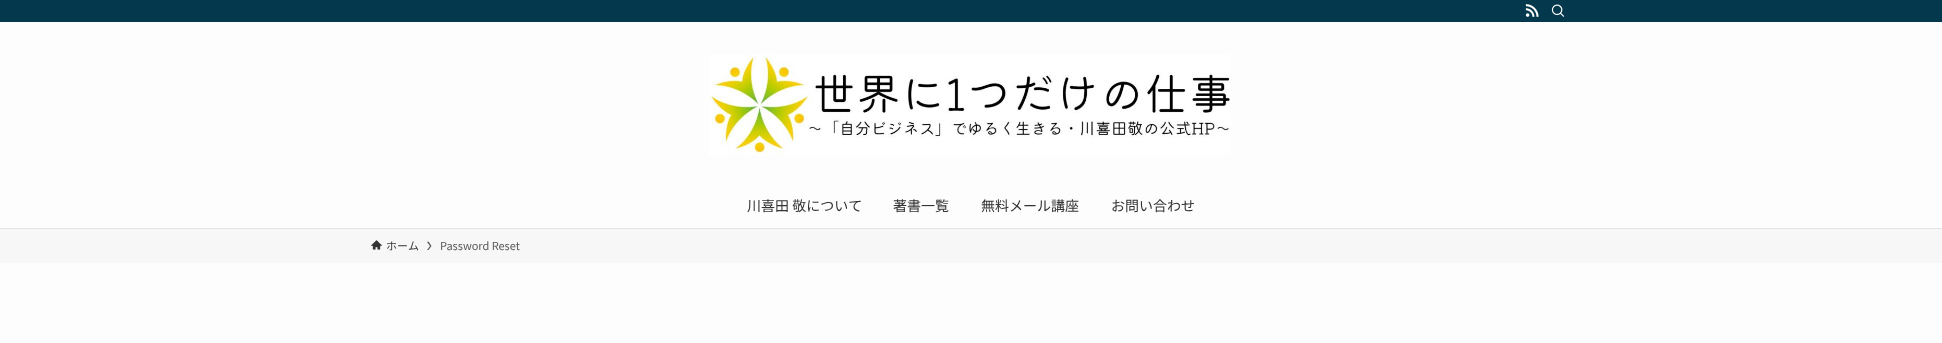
<!DOCTYPE html>
<meta charset="utf-8">
<style>body { margin: 0 } canvas { display: block }</style>
<canvas id="canvas" width="1942" height="343"></canvas>
<script type="module">
  const canvas = document.getElementById("canvas");
  const g = canvas.getContext("2d");
  g.miterLimit = 4;
  g.fontKerning = "normal";
  function drawText(s, x, y, [font, color]) {
    g.font = font;
    g.fillStyle = color;
    g.fillText(s, x, y);
  }
  function fillBox(x, y, w, h, color) {
    g.fillStyle = color;
    g.fillRect(x, y, w, h);
  }
  async function drawPicture(src, x, y, w, h) {
    const img = new Image();
    img.src = src;
    await img.decode();
    g.drawImage(img, x, y, w, h);
  }

  const s1 = ["14px Noto Sans JP", "#333333"];
  const s2 = ["11px Noto Sans JP", "#333333"];
  const s3 = ["11px Noto Sans JP", "#5A5A5A"];

  fillBox(0, 0, 1942, 343, "#FDFDFD");
  fillBox(0, 228, 1942, 1, "#E4E4E4");
  fillBox(0, 0, 1942, 22, "#04384C");
  await drawPicture("pic1.png", 1525, 4, 14, 13);
  await drawPicture("pic2.png", 1551, 4, 14, 13);
  await drawPicture("pic3.png", 709, 54, 521, 101);
  drawText("川喜田 敬について", 747, 211, s1);
  drawText("著書一覧", 893, 211, s1);
  drawText("無料メール講座", 981, 211, s1);
  drawText("お問い合わせ", 1111, 211, s1);
  fillBox(0, 229, 1942, 34, "#F7F7F7");
  await drawPicture("pic4.png", 371, 240, 11, 10);
  drawText("ホーム", 386, 250, s2);
  g.fillStyle = "#5A5A5A";
  g.beginPath();
  g.moveTo(428.5, 241.5);
  g.lineTo(427, 242);
  g.lineTo(430, 246);
  g.lineTo(427, 250);
  g.lineTo(428.5, 250);
  g.lineTo(431.5, 246);
  g.closePath();
  g.fill();
  drawText("Password Reset", 440, 250, s3);
</script>
